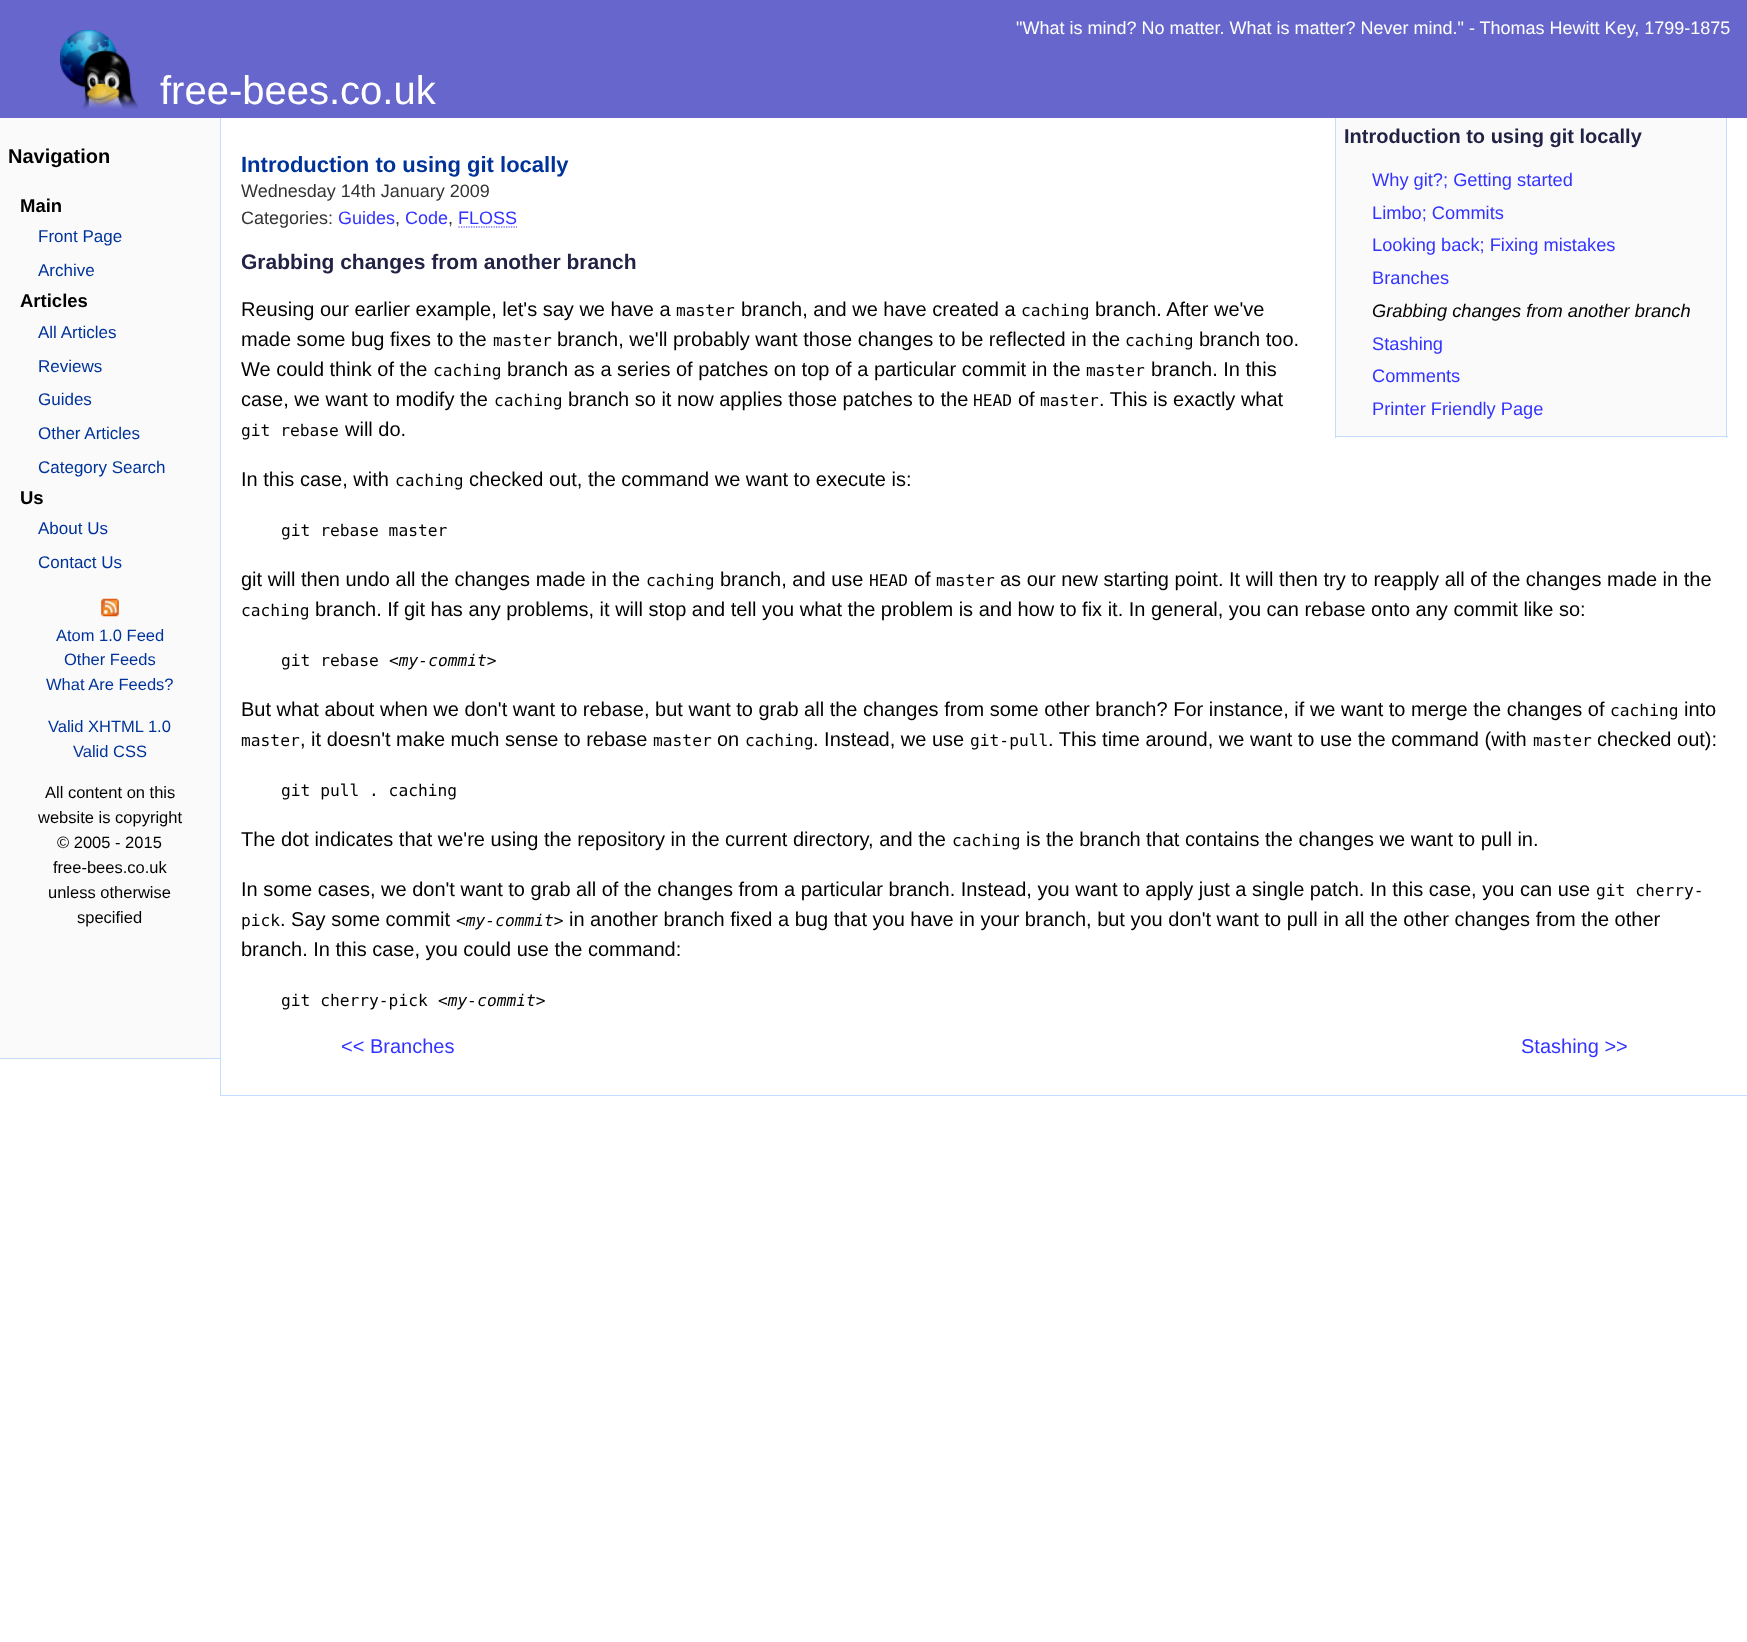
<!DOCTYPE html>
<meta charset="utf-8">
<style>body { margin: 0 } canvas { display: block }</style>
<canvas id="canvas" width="1747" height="1642"></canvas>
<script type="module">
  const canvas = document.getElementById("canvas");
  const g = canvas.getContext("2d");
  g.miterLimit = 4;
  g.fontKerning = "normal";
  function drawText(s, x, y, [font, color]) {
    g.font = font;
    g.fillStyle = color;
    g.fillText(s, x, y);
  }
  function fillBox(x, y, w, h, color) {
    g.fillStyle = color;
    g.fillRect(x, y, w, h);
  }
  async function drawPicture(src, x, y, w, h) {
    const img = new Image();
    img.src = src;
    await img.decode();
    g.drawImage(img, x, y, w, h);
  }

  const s1 = ["18px Liberation Sans", "#FFFFFF"];
  const s2 = ["40px Liberation Sans", "#FFFFFF"];
  const s3 = ["bold 20px Liberation Sans", "#000000"];
  const s4 = ["bold 18.5px Liberation Sans", "#000000"];
  const s5 = ["17px Liberation Sans", "#003399"];
  const s6 = ["16.5px Liberation Sans", "#003399"];
  const s7 = ["16.5px Liberation Sans", "#000000"];
  const s8 = ["bold 22px Liberation Sans", "#003399"];
  const s9 = ["bold 20px Liberation Sans", "#222244"];
  const s10 = ["18.25px Liberation Sans", "#3333FF"];
  const s11 = ["italic 18.25px Liberation Sans", "#000000"];
  const s12 = ["18px Liberation Sans", "#333333"];
  const s13 = ["18px Liberation Sans", "#3333FF"];
  const s14 = ["bold 21px Liberation Sans", "#222244"];
  const s15 = ["20px Liberation Sans", "#000000"];
  const s16 = ["16.25px DejaVu Sans Mono", "#000000"];
  const s17 = ["italic 16.25px DejaVu Sans Mono", "#000000"];
  const s18 = ["20px Liberation Sans", "#3333FF"];

  fillBox(0, 0, 1747, 1642, "#FFFFFF");
  fillBox(0, 0, 1747, 118, "#6666CC");
  drawText("\"What is mind? No matter. What is matter? Never mind.\" - Thomas Hewitt Key, 1799-1875", 1016, 34, s1);
  await drawPicture("pic1.png", 60, 30, 79, 79);
  drawText("free-bees.co.uk", 160, 104, s2);
  fillBox(0, 118, 220, 940, "#FAFAFB");
  fillBox(220, 1095, 1527, 1, "#C4DCFF");
  fillBox(220, 118, 1, 978, "#C4DCFF");
  fillBox(0, 1058, 221, 1, "#C4DCFF");
  drawText("Navigation", 8, 163, s3);
  drawText("Main", 20, 212, s4);
  drawText("Front Page", 38, 242, s5);
  drawText("Archive", 38, 276, s5);
  drawText("Articles", 20, 307, s4);
  drawText("All Articles", 38, 338, s5);
  drawText("Reviews", 38, 372, s5);
  drawText("Guides", 38, 405, s5);
  drawText("Other Articles", 38, 439, s5);
  drawText("Category Search", 38, 473, s5);
  drawText("Us", 20, 504, s4);
  drawText("About Us", 38, 534, s5);
  drawText("Contact Us", 38, 568, s5);
  await drawPicture("pic2.png", 101, 598, 18, 19);
  drawText("Atom 1.0 Feed", 56, 641, s6);
  drawText("Other Feeds", 64, 665, s6);
  drawText("What Are Feeds?", 46, 690, s6);
  drawText("Valid XHTML 1.0", 48, 732, s6);
  drawText("Valid CSS", 73, 757, s6);
  drawText("All content on this", 45, 798, s7);
  drawText("website is copyright", 38, 823, s7);
  drawText("© 2005 - 2015", 57, 848, s7);
  drawText("free-bees.co.uk", 53, 873, s7);
  drawText("unless otherwise", 48, 898, s7);
  drawText("specified", 77, 923, s7);
  drawText("Introduction to using git locally", 241, 172, s8);
  fillBox(1336, 118, 390, 318, "#FAFAFB");
  fillBox(1726, 118, 1, 320, "#C4DCFF");
  fillBox(1335, 436, 393, 1, "#C4DCFF");
  fillBox(1335, 118, 1, 320, "#C4DCFF");
  drawText("Introduction to using git locally", 1344, 143, s9);
  drawText("Why git?; Getting started", 1372, 186, s10);
  drawText("Limbo; Commits", 1372, 219, s10);
  drawText("Looking back; Fixing mistakes", 1372, 251, s10);
  drawText("Branches", 1372, 284, s10);
  drawText("Grabbing changes from another branch", 1372, 317, s11);
  drawText("Stashing", 1372, 350, s10);
  drawText("Comments", 1372, 382, s10);
  drawText("Printer Friendly Page", 1372, 415, s10);
  drawText("Wednesday 14th January 2009", 241, 197, s12);
  drawText("Categories:", 241, 224, s12);
  drawText("Guides", 338, 224, s13);
  drawText(",", 395, 224, s12);
  drawText("Code", 405, 224, s13);
  drawText(",", 448, 224, s12);
  drawText("FLOSS", 458, 224, s13);
  g.beginPath();
  g.moveTo(458.5, 227);
  g.lineTo(517, 227);
  g.strokeStyle = "#3333FF";
  g.lineWidth = 1.2;
  g.setLineDash([1.25, 1.25]);
  g.stroke();
  drawText("Grabbing changes from another branch", 241, 269, s14);
  drawText("Reusing our earlier example, let's say we have a", 241, 316, s15);
  drawText("master", 676, 316, s16);
  drawText("branch, and we have created a", 741, 316, s15);
  drawText("caching", 1021, 316, s16);
  drawText("branch. After we've", 1095, 316, s15);
  drawText("made some bug fixes to the", 241, 346, s15);
  drawText("master", 493, 346, s16);
  drawText("branch, we'll probably want those changes to be reflected in the", 557, 346, s15);
  drawText("caching", 1125, 346, s16);
  drawText("branch too.", 1199, 346, s15);
  drawText("We could think of the", 241, 376, s15);
  drawText("caching", 433, 376, s16);
  drawText("branch as a series of patches on top of a particular commit in the", 507, 376, s15);
  drawText("master", 1086, 376, s16);
  drawText("branch. In this", 1151, 376, s15);
  drawText("case, we want to modify the", 241, 406, s15);
  drawText("caching", 494, 406, s16);
  drawText("branch so it now applies those patches to the", 568, 406, s15);
  drawText("HEAD", 973, 406, s16);
  drawText("of", 1018, 406, s15);
  drawText("master", 1040, 406, s16);
  drawText(". This is exactly what", 1099, 406, s15);
  drawText("git rebase", 241, 436, s16);
  drawText("will do.", 345, 436, s15);
  drawText("In this case, with", 241, 486, s15);
  drawText("caching", 395, 486, s16);
  drawText("checked out, the command we want to execute is:", 469, 486, s15);
  drawText("git rebase master", 281, 536, s16);
  drawText("git will then undo all the changes made in the", 241, 586, s15);
  drawText("caching", 646, 586, s16);
  drawText("branch, and use", 720, 586, s15);
  drawText("HEAD", 869, 586, s16);
  drawText("of", 914, 586, s15);
  drawText("master", 936, 586, s16);
  drawText("as our new starting point. It will then try to reapply all of the changes made in the", 1000, 586, s15);
  drawText("caching", 241, 616, s16);
  drawText("branch. If git has any problems, it will stop and tell you what the problem is and how to fix it. In general, you can rebase onto any commit like so:", 315, 616, s15);
  drawText("git rebase", 281, 666, s16);
  drawText("<my-commit>", 389, 666, s17);
  drawText("But what about when we don't want to rebase, but want to grab all the changes from some other branch? For instance, if we want to merge the changes of", 241, 716, s15);
  drawText("caching", 1610, 716, s16);
  drawText("into", 1684, 716, s15);
  drawText("master", 241, 746, s16);
  drawText(", it doesn't make much sense to rebase", 300, 746, s15);
  drawText("master", 653, 746, s16);
  drawText("on", 717, 746, s15);
  drawText("caching", 745, 746, s16);
  drawText(". Instead, we use", 813, 746, s15);
  drawText("git-pull", 970, 746, s16);
  drawText(". This time around, we want to use the command (with", 1048, 746, s15);
  drawText("master", 1533, 746, s16);
  drawText("checked out):", 1597, 746, s15);
  drawText("git pull . caching", 281, 796, s16);
  drawText("The dot indicates that we're using the repository in the current directory, and the", 241, 846, s15);
  drawText("caching", 952, 846, s16);
  drawText("is the branch that contains the changes we want to pull in.", 1026, 846, s15);
  drawText("In some cases, we don't want to grab all of the changes from a particular branch. Instead, you want to apply just a single patch. In this case, you can use", 241, 896, s15);
  drawText("git cherry-", 1596, 896, s16);
  drawText("pick", 241, 926, s16);
  drawText(". Say some commit", 280, 926, s15);
  drawText("<my-commit>", 456, 926, s17);
  drawText("in another branch fixed a bug that you have in your branch, but you don't want to pull in all the other changes from the other", 569, 926, s15);
  drawText("branch. In this case, you could use the command:", 241, 956, s15);
  drawText("git cherry-pick", 281, 1006, s16);
  drawText("<my-commit>", 438, 1006, s17);
  drawText("<< Branches", 341, 1053, s18);
  drawText("Stashing >>", 1521, 1053, s18);
</script>
